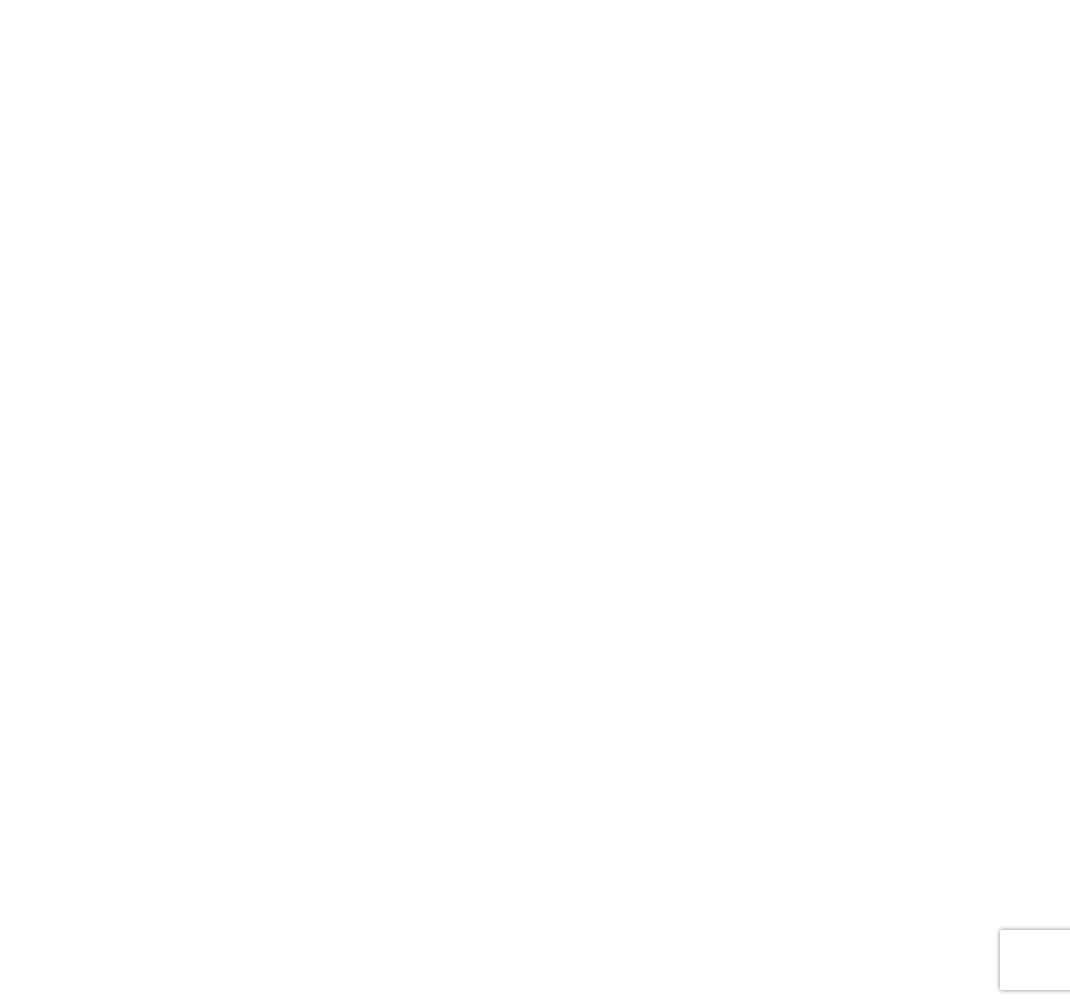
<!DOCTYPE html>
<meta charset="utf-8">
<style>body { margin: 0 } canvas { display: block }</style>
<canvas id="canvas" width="1070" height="1004"></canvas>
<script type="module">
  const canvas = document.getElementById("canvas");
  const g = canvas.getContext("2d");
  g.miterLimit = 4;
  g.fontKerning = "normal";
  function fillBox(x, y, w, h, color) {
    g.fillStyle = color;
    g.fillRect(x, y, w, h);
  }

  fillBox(0, 0, 1070, 1004, "#FFFFFF");
  g.save();
  g.beginPath();
  g.moveTo(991, 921);
  g.lineTo(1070, 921);
  g.lineTo(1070, 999);
  g.lineTo(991, 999);
  g.closePath();
  g.moveTo(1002, 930);
  g.lineTo(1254, 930);
  g.bezierCurveTo(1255, 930, 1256, 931, 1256, 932);
  g.lineTo(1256, 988);
  g.bezierCurveTo(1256, 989, 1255, 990, 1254, 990);
  g.lineTo(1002, 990);
  g.bezierCurveTo(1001, 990, 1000, 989, 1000, 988);
  g.lineTo(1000, 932);
  g.bezierCurveTo(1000, 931, 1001, 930, 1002, 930);
  g.closePath();
  g.clip("evenodd");
  g.fillStyle = "#868686";
  g.filter = "blur(2.5px)";
  g.beginPath();
  g.roundRect(1000, 930, 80, 60, 2);
  g.fill();
  g.filter = "none";
  g.restore();
</script>
